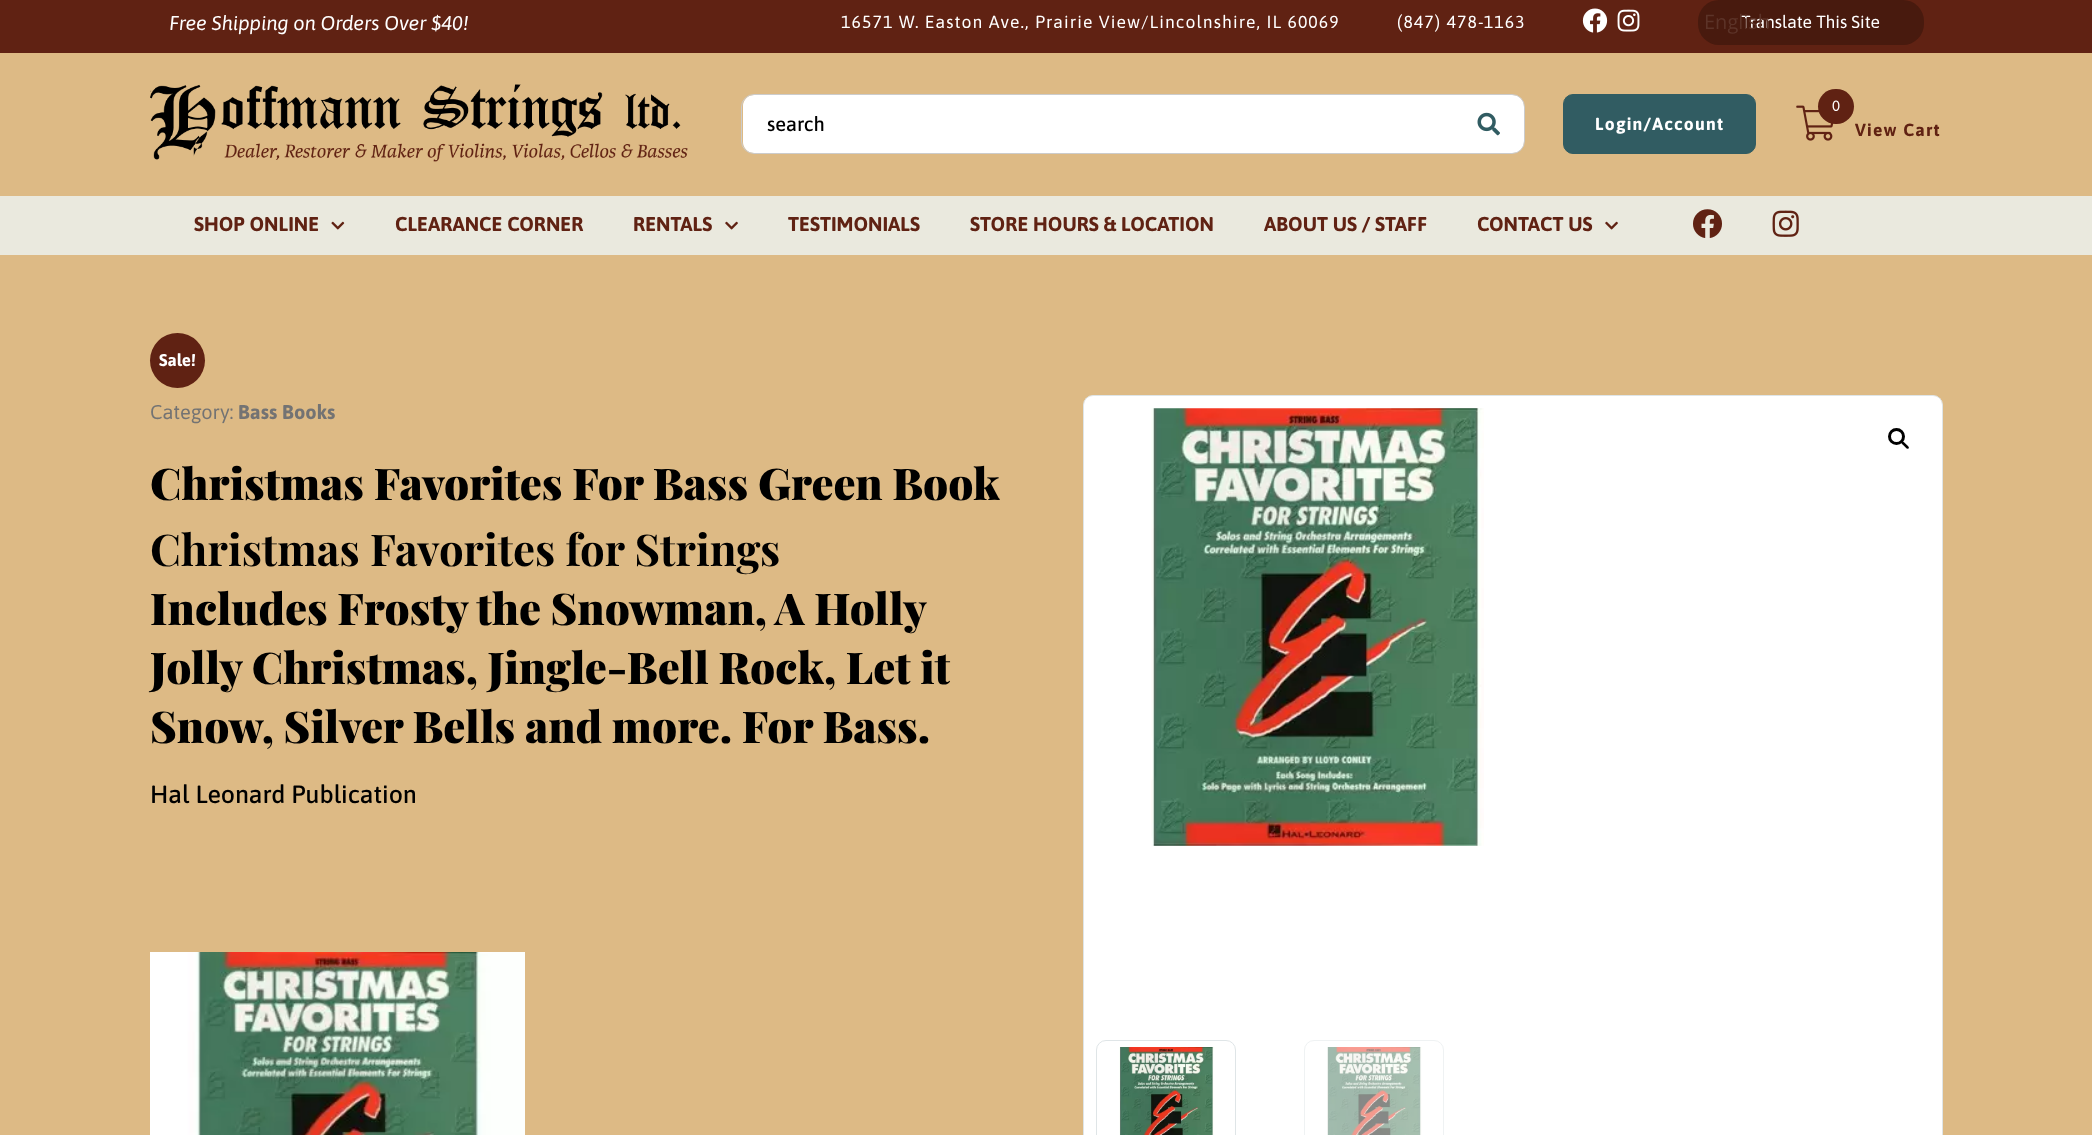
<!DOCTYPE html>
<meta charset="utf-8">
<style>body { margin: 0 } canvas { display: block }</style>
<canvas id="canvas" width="2092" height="1135"></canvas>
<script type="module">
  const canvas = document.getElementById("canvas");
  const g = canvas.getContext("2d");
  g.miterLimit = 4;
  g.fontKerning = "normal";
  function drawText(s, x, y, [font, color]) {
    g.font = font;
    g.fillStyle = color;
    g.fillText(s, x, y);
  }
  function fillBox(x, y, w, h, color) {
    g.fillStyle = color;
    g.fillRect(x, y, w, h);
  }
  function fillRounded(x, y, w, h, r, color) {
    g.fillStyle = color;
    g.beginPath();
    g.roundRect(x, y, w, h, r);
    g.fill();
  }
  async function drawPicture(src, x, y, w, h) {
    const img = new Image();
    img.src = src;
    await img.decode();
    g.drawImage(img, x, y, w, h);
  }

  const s1 = ["italic 20px Asap", "#FFFFFF"];
  const s2 = ["17.5px Asap", "#FFFFFF"];
  const s3 = ["20px Open Sans", "#5C3328"];
  const s4 = ["500 20px Asap", "#000000"];
  const s5 = ["bold 17.5px Asap", "#FFFFFF"];
  const s6 = ["15px Asap", "#FFFFFF"];
  const s7 = ["bold 17.5px Asap", "#602213"];
  const s8 = ["bold 20px Asap", "#602213"];
  const s9 = ["bold 17px Asap", "#FFFFFF"];
  const s10 = ["20px Asap", "#737373"];
  const s11 = ["bold 20px Asap", "#737373"];
  const s12 = ["900 43.75px Playfair Display", "#000000"];
  const s13 = ["bold 43.75px Playfair Display", "#000000"];
  const s14 = ["500 25px Asap", "#000000"];

  fillBox(0, 0, 2092, 1135, "#DDBA85");
  fillBox(0, 0, 2092, 53, "#602213");
  drawText("Free Shipping on Orders Over $40!", 169, 30, s1);
  g.letterSpacing = "1.12px";
  drawText("16571 W. Easton Ave., Prairie View/Lincolnshire, IL 60069", 841, 28, s2);
  drawText("(847) 478-1163", 1397, 28, s2);
  await drawPicture("pic1.png", 1582, 8, 26, 25);
  await drawPicture("pic2.png", 1617, 9, 23, 23);
  fillRounded(1698, 0, 226, 45, 21, "#481A0E");
  g.letterSpacing = "0px";
  drawText("Translate This Site", 1741, 28, s2);
  drawText("English", 1704, 29, s3);
  await drawPicture("pic3.png", 150, 84, 538, 78);
  fillRounded(743, 95, 781, 58, 11, "#FFFFFF");
  g.beginPath();
  g.roundRect(741.5, 94.5, 783, 59, 12.5);
  g.strokeStyle = "#CCCCCC";
  g.stroke();
  drawText("search", 767, 131, s4);
  await drawPicture("pic4.png", 1477, 112, 23, 24);
  g.fillStyle = "#315C62";
  g.beginPath();
  g.roundRect(1563.5, 94.5, 192, 59, 9.5);
  g.fill();
  g.strokeStyle = "#315C62";
  g.stroke();
  g.letterSpacing = "1.25px";
  drawText("Login/Account", 1595, 130, s5);
  await drawPicture("pic5.png", 1796, 105, 38, 36);
  fillRounded(1818, 89, 36, 35, 17.5, "#602213");
  drawText("0", 1832, 111, s6);
  drawText("View Cart", 1855, 136, s7);
  fillBox(0, 196, 2092, 59, "#EAE9DE");
  g.letterSpacing = "0px";
  drawText("SHOP ONLINE", 194, 231, s8);
  await drawPicture("pic6.png", 331, 221, 14, 9);
  drawText("CLEARANCE CORNER", 395, 231, s8);
  drawText("RENTALS", 633, 231, s8);
  await drawPicture("pic7.png", 725, 221, 13, 9);
  drawText("TESTIMONIALS", 788, 231, s8);
  drawText("STORE HOURS & LOCATION", 970, 231, s8);
  drawText("ABOUT US / STAFF", 1264, 231, s8);
  drawText("CONTACT US", 1477, 231, s8);
  await drawPicture("pic7.png", 1605, 221, 13, 9);
  await drawPicture("pic8.png", 1693, 209, 29, 29);
  await drawPicture("pic9.png", 1772, 210, 27, 27);
  g.beginPath();
  g.arc(177.5, 360.5, 27.5, 0, Math.PI * 2);
  g.fill();
  drawText("Sale!", 159, 366, s9);
  drawText("Category:", 150, 419, s10);
  drawText("Bass Books", 238, 419, s11);
  drawText("Christmas Favorites For Bass Green Book", 150, 500, s12);
  drawText("Christmas Favorites for Strings", 150, 566, s13);
  g.wordSpacing = "-0.25px";
  drawText("Includes Frosty the Snowman, A Holly", 150, 625, s12);
  g.wordSpacing = "0px";
  drawText("Jolly Christmas, Jingle-Bell Rock, Let it", 150, 684, s12);
  drawText("Snow, Silver Bells and more. For Bass.", 150, 743, s12);
  drawText("Hal Leonard Publication", 150, 803, s14);
  await drawPicture("pic10.png", 150, 952, 375, 183);
  g.fillStyle = "#FFFFFF";
  g.beginPath();
  g.roundRect(1083.5, 395.5, 859, 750, 9.5);
  g.fill();
  g.strokeStyle = "#DFE5E7";
  g.stroke();
  await drawPicture("pic11.png", 1151, 408, 333, 438);
  g.beginPath();
  g.arc(1896.5, 436.5, 7, 0, Math.PI * 2);
  g.strokeStyle = "#000000";
  g.lineWidth = 3;
  g.stroke();
  g.fillStyle = "#000000";
  g.beginPath();
  g.moveTo(1901.5, 441.5);
  g.bezierCurveTo(1903, 440, 1905, 443.5, 1906, 444);
  g.bezierCurveTo(1906.5, 445, 1910, 447, 1908.5, 448.5);
  g.bezierCurveTo(1907, 450, 1905, 446.5, 1904, 446);
  g.bezierCurveTo(1903.5, 445, 1900, 443, 1901.5, 441.5);
  g.closePath();
  g.fill();
  g.beginPath();
  g.roundRect(1096.5, 1040.5, 139, 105, 9.5);
  g.strokeStyle = "#DFE5E7";
  g.lineWidth = 1;
  g.stroke();
  await drawPicture("pic12.png", 1119, 1047, 95, 88);
  g.beginPath();
  g.roundRect(1304.5, 1040.5, 139, 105, 9.5);
  g.strokeStyle = "#EFF2F3";
  g.stroke();
  await drawPicture("pic13.png", 1327, 1047, 95, 88);
</script>
